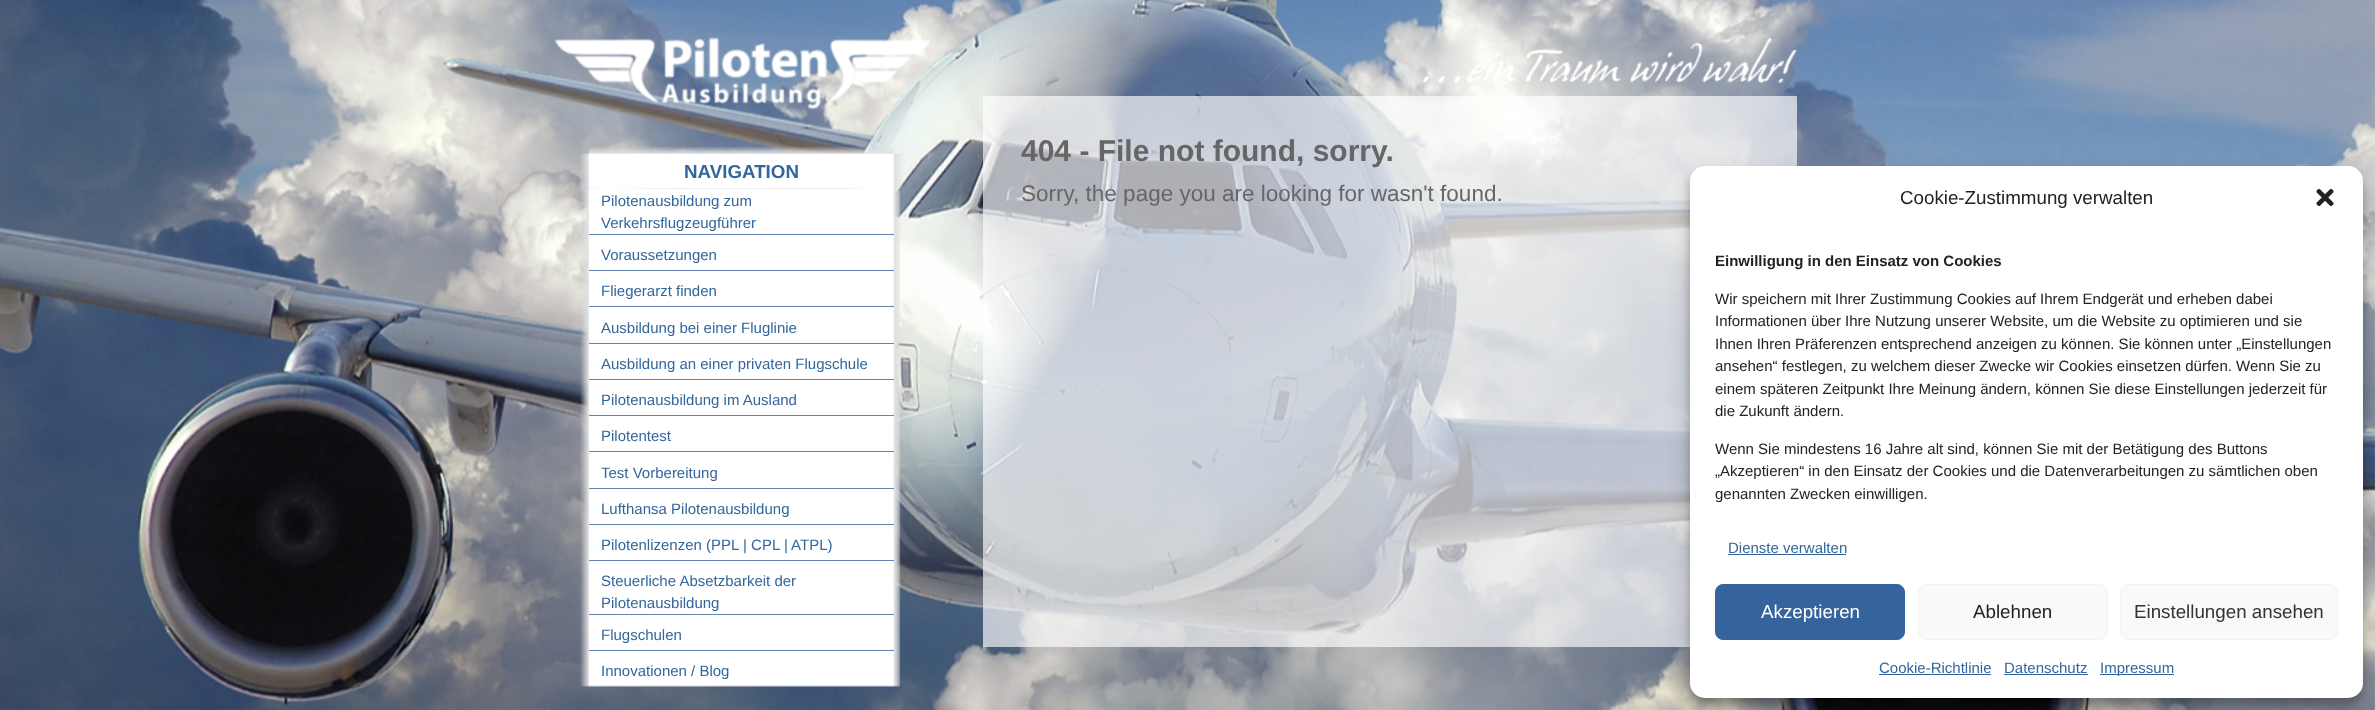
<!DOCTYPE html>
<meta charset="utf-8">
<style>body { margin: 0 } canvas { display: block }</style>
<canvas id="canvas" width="2375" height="710"></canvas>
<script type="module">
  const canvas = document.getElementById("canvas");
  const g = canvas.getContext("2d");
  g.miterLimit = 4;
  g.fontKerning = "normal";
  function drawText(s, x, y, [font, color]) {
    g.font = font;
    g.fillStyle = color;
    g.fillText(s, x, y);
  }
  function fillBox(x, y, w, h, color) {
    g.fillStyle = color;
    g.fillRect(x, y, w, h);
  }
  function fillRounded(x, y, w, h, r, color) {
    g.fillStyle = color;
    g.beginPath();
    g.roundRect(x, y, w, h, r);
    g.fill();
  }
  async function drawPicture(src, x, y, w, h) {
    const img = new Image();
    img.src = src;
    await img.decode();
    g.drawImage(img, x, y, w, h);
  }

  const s1 = ["bold 18.75px Liberation Sans", "#32679D"];
  const s2 = ["15px Liberation Sans", "#32679D"];
  const s3 = ["bold 30px Liberation Sans", "#666666"];
  const s4 = ["22.5px Liberation Sans", "#666666"];
  const s5 = ["18.75px Liberation Sans", "#222222"];
  const s6 = ["bold 15px Liberation Sans", "#222222"];
  const s7 = ["15px Liberation Sans", "#222222"];
  const s8 = ["18.75px Liberation Sans", "#FFFFFF"];
  const s9 = ["18.75px Liberation Sans", "#333333"];

  fillBox(0, 0, 2375, 710, "#FFFFFF");
  await drawPicture("pic1.png", 0, 0, 2375, 710);
  await drawPicture("pic2.png", 1422, 37, 375, 47);
  await drawPicture("pic3.png", 554, 37, 376, 73);
  await drawPicture("pic4.png", 580, 146, 324, 43);
  drawText("NAVIGATION", 684, 178, s1);
  await drawPicture("pic5.png", 580, 188, 321, 499);
  fillBox(589, 234, 305, 1, "#6483AF");
  drawText("Pilotenausbildung zum", 601, 206, s2);
  drawText("Verkehrsflugzeugführer", 601, 228, s2);
  fillBox(589, 270, 305, 1, "#6483AF");
  drawText("Voraussetzungen", 601, 260, s2);
  fillBox(589, 306, 305, 1, "#6483AF");
  drawText("Fliegerarzt finden", 601, 296, s2);
  fillBox(589, 343, 305, 1, "#6483AF");
  drawText("Ausbildung bei einer Fluglinie", 601, 333, s2);
  fillBox(589, 379, 305, 1, "#6483AF");
  drawText("Ausbildung an einer privaten Flugschule", 601, 369, s2);
  fillBox(589, 415, 305, 1, "#6483AF");
  drawText("Pilotenausbildung im Ausland", 601, 405, s2);
  fillBox(589, 451, 305, 1, "#6483AF");
  drawText("Pilotentest", 601, 441, s2);
  fillBox(589, 488, 305, 1, "#6483AF");
  drawText("Test Vorbereitung", 601, 478, s2);
  fillBox(589, 524, 305, 1, "#6483AF");
  drawText("Lufthansa Pilotenausbildung", 601, 514, s2);
  fillBox(589, 560, 305, 1, "#6483AF");
  drawText("Pilotenlizenzen (PPL | CPL | ATPL)", 601, 550, s2);
  fillBox(589, 614, 305, 1, "#6483AF");
  drawText("Steuerliche Absetzbarkeit der", 601, 586, s2);
  drawText("Pilotenausbildung", 601, 608, s2);
  fillBox(589, 650, 305, 1, "#6483AF");
  drawText("Flugschulen", 601, 640, s2);
  drawText("Innovationen / Blog", 601, 676, s2);
  fillBox(983, 96, 814, 551, "rgba(255, 255, 255, 0.66)");
  drawText("404 - File not found, sorry.", 1021, 161, s3);
  drawText("Sorry, the page you are looking for wasn't found.", 1021, 201, s4);
  g.fillStyle = "rgba(0, 0, 0, 0.23)";
  g.filter = "blur(4px)";
  g.beginPath();
  g.roundRect(1690, 174, 673, 531, 15);
  g.fill();
  g.filter = "none";
  g.fillStyle = "rgba(0, 0, 0, 0.19)";
  g.filter = "blur(12.5px)";
  g.beginPath();
  g.roundRect(1690, 179, 673, 531, 15);
  g.fill();
  g.filter = "none";
  fillRounded(1690, 166, 673, 532, 15, "#FFFFFF");
  drawText("Cookie-Zustimmung verwalten", 1900, 204, s5);
  await drawPicture("pic6.png", 2316, 188, 18, 18);
  drawText("Einwilligung in den Einsatz von Cookies", 1715, 266, s6);
  drawText("Wir speichern mit Ihrer Zustimmung Cookies auf Ihrem Endgerät und erheben dabei", 1715, 304, s7);
  drawText("Informationen über Ihre Nutzung unserer Website, um die Website zu optimieren und sie", 1715, 326, s7);
  drawText("Ihnen Ihren Präferenzen entsprechend anzeigen zu können. Sie können unter „Einstellungen", 1715, 349, s7);
  drawText("ansehen“ festlegen, zu welchem dieser Zwecke wir Cookies einsetzen dürfen. Wenn Sie zu", 1715, 371, s7);
  drawText("einem späteren Zeitpunkt Ihre Meinung ändern, können Sie diese Einstellungen jederzeit für", 1715, 394, s7);
  drawText("die Zukunft ändern.", 1715, 416, s7);
  drawText("Wenn Sie mindestens 16 Jahre alt sind, können Sie mit der Betätigung des Buttons", 1715, 454, s7);
  drawText("„Akzeptieren“ in den Einsatz der Cookies und die Datenverarbeitungen zu sämtlichen oben", 1715, 476, s7);
  drawText("genannten Zwecken einwilligen.", 1715, 499, s7);
  drawText("Dienste verwalten", 1728, 553, s2);
  fillBox(1728, 554, 118, 1, "#35639E");
  g.beginPath();
  g.roundRect(1715.5, 584.5, 189, 55, 7.5);
  g.fill();
  g.strokeStyle = "#35639E";
  g.stroke();
  drawText("Akzeptieren", 1761, 618, s8);
  g.fillStyle = "#F9F9F9";
  g.beginPath();
  g.roundRect(1918.5, 584.5, 189, 55, 7.5);
  g.fill();
  g.strokeStyle = "#F2F2F2";
  g.stroke();
  drawText("Ablehnen", 1973, 618, s5);
  g.fillStyle = "#F9F9F9";
  g.beginPath();
  g.roundRect(2120.5, 584.5, 217, 55, 7.5);
  g.fill();
  g.stroke();
  drawText("Einstellungen ansehen", 2134, 618, s9);
  drawText("Cookie-Richtlinie", 1879, 673, s2);
  fillBox(1879, 674, 112, 1, "#35639E");
  drawText("Datenschutz", 2004, 673, s2);
  fillBox(2004, 674, 84, 1, "#35639E");
  fillBox(2100, 674, 74, 1, "#35639E");
  drawText("Impressum", 2100, 673, s2);
</script>
